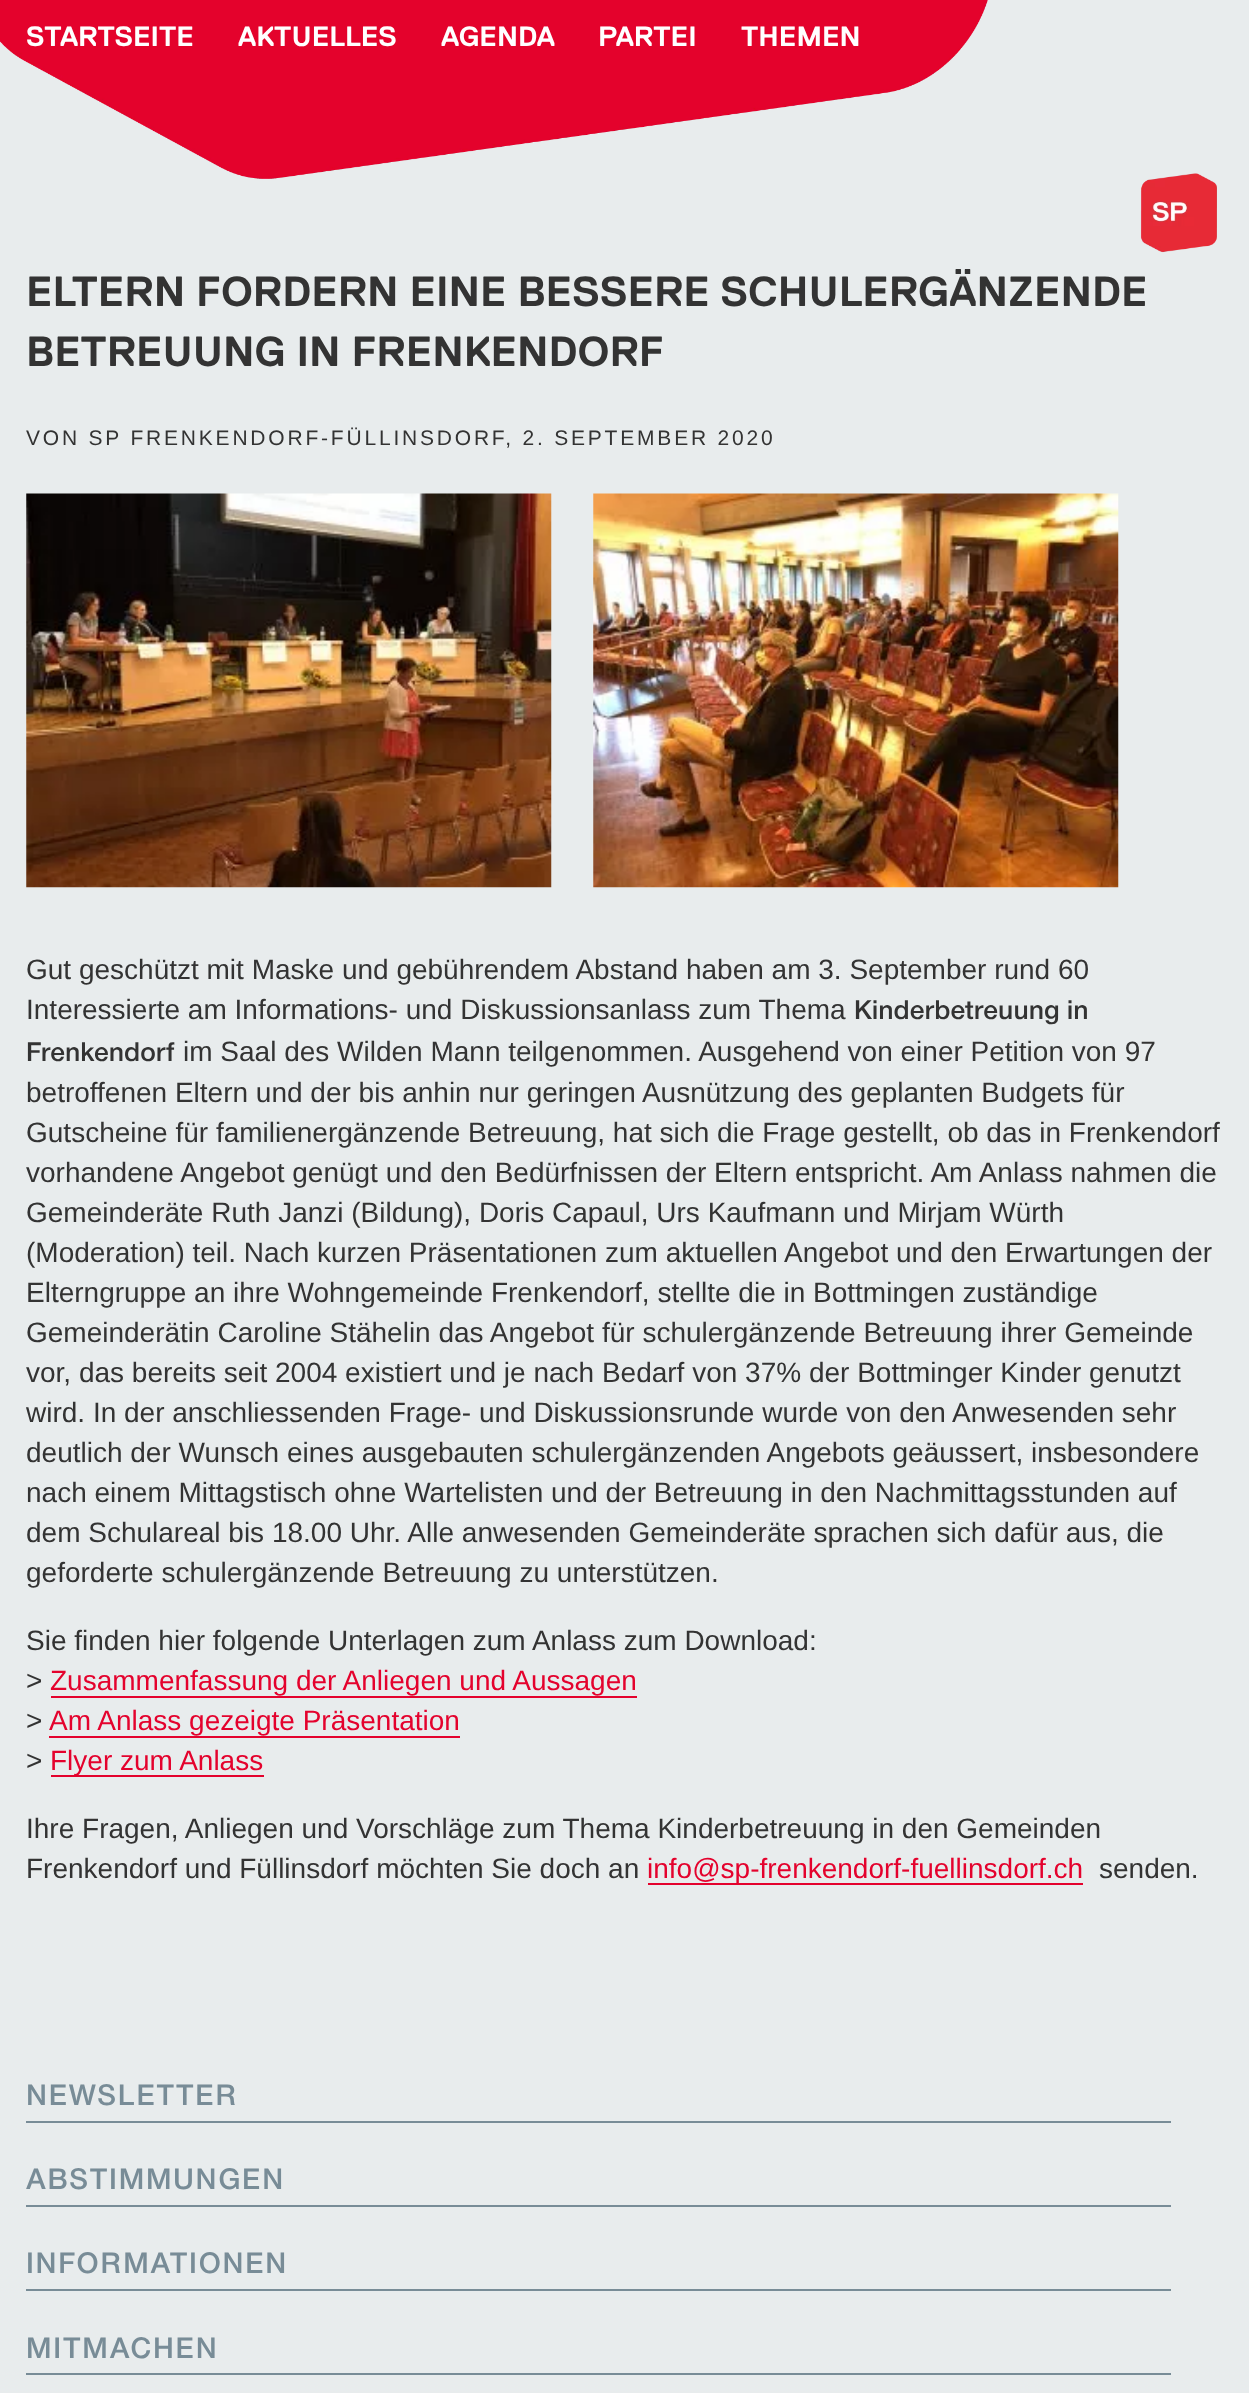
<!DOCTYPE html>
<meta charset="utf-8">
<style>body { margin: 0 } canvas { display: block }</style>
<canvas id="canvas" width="1249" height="2393"></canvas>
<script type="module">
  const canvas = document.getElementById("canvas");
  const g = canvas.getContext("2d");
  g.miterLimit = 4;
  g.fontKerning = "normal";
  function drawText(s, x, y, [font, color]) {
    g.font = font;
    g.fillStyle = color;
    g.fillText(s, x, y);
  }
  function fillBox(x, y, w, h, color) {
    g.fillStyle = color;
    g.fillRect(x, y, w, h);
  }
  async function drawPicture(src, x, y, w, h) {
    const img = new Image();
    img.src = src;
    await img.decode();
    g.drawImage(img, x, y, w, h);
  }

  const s1 = ["bold 28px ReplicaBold", "#FFFFFF"];
  const s2 = ["bold 42px ReplicaBold", "#333333"];
  const s3 = ["21px Liberation Sans", "#333333"];
  const s4 = ["28px Liberation Sans", "#333333"];
  const s5 = ["600 28px 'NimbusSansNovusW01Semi'", "#333333"];
  const s6 = ["28px Liberation Sans", "#E4022D"];
  const s7 = ["600 30.75px 'NimbusSansNovusW01Semi'", "#788C97"];

  fillBox(0, 0, 1249, 2393, "#E8ECED");
  await drawPicture("pic1.png", 0, 0, 988, 179);
  drawText("STARTSEITE", 26, 46, s1);
  drawText("AKTUELLES", 238, 46, s1);
  drawText("AGENDA", 441, 46, s1);
  drawText("PARTEI", 598, 46, s1);
  drawText("THEMEN", 741, 46, s1);
  await drawPicture("pic2.png", 1140, 173, 77, 80);
  drawText("ELTERN FORDERN EINE BESSERE SCHULERGÄNZENDE", 26, 306, s2);
  drawText("BETREUUNG IN FRENKENDORF", 26, 366, s2);
  g.letterSpacing = "2.8px";
  drawText("VON SP FRENKENDORF-FÜLLINSDORF, 2. SEPTEMBER 2020", 26, 445, s3);
  await drawPicture("pic3.png", 26, 493, 526, 395);
  await drawPicture("pic4.png", 593, 493, 526, 395);
  g.letterSpacing = "0px";
  drawText("Gut geschützt mit Maske und gebührendem Abstand haben am 3. September rund 60", 26, 979, s4);
  drawText("Interessierte am Informations- und Diskussionsanlass zum Thema", 26, 1019, s4);
  drawText("Kinderbetreuung in", 854, 1019, s5);
  drawText("Frenkendorf", 26, 1061, s5);
  drawText("im Saal des Wilden Mann teilgenommen. Ausgehend von einer Petition von 97", 183, 1061, s4);
  drawText("betroffenen Eltern und der bis anhin nur geringen Ausnützung des geplanten Budgets für", 26, 1102, s4);
  drawText("Gutscheine für familienergänzende Betreuung, hat sich die Frage gestellt, ob das in Frenkendorf", 26, 1142, s4);
  drawText("vorhandene Angebot genügt und den Bedürfnissen der Eltern entspricht. Am Anlass nahmen die", 26, 1182, s4);
  drawText("Gemeinderäte Ruth Janzi (Bildung), Doris Capaul, Urs Kaufmann und Mirjam Würth", 26, 1222, s4);
  drawText("(Moderation) teil. Nach kurzen Präsentationen zum aktuellen Angebot und den Erwartungen der", 26, 1262, s4);
  drawText("Elterngruppe an ihre Wohngemeinde Frenkendorf, stellte die in Bottmingen zuständige", 26, 1302, s4);
  drawText("Gemeinderätin Caroline Stähelin das Angebot für schulergänzende Betreuung ihrer Gemeinde", 26, 1342, s4);
  drawText("vor, das bereits seit 2004 existiert und je nach Bedarf von 37% der Bottminger Kinder genutzt", 26, 1382, s4);
  drawText("wird. In der anschliessenden Frage- und Diskussionsrunde wurde von den Anwesenden sehr", 26, 1422, s4);
  drawText("deutlich der Wunsch eines ausgebauten schulergänzenden Angebots geäussert, insbesondere", 26, 1462, s4);
  drawText("nach einem Mittagstisch ohne Wartelisten und der Betreuung in den Nachmittagsstunden auf", 26, 1502, s4);
  drawText("dem Schulareal bis 18.00 Uhr. Alle anwesenden Gemeinderäte sprachen sich dafür aus, die", 26, 1542, s4);
  drawText("geforderte schulergänzende Betreuung zu unterstützen.", 26, 1582, s4);
  drawText("Sie finden hier folgende Unterlagen zum Anlass zum Download:", 26, 1650, s4);
  drawText(">", 26, 1690, s4);
  drawText("Zusammenfassung der Anliegen und Aussagen", 50, 1690, s6);
  fillBox(51, 1696, 586, 2, "#E4022D");
  drawText(">", 26, 1730, s4);
  drawText("Am Anlass gezeigte Präsentation", 49, 1730, s6);
  fillBox(49, 1736, 411, 2, "#E4022D");
  drawText(">", 26, 1770, s4);
  fillBox(51, 1775, 213, 2, "#E4022D");
  drawText("Flyer zum Anlass", 50, 1770, s6);
  drawText("Ihre Fragen, Anliegen und Vorschläge zum Thema Kinderbetreuung in den Gemeinden", 26, 1838, s4);
  drawText("Frenkendorf und Füllinsdorf möchten Sie doch an", 26, 1878, s4);
  fillBox(648, 1883, 435, 2, "#E4022D");
  drawText("info@sp-frenkendorf-fuellinsdorf.ch", 647, 1878, s6);
  drawText("senden.", 1099, 1878, s4);
  fillBox(26, 2121, 1145, 2, "#788C97");
  g.letterSpacing = "1.75px";
  drawText("NEWSLETTER", 26, 2105, s7);
  fillBox(26, 2205, 1145, 2, "#788C97");
  drawText("ABSTIMMUNGEN", 26, 2189, s7);
  fillBox(26, 2289, 1145, 2, "#788C97");
  drawText("INFORMATIONEN", 26, 2273, s7);
  fillBox(26, 2373, 1145, 2, "#788C97");
  drawText("MITMACHEN", 26, 2358, s7);
</script>
